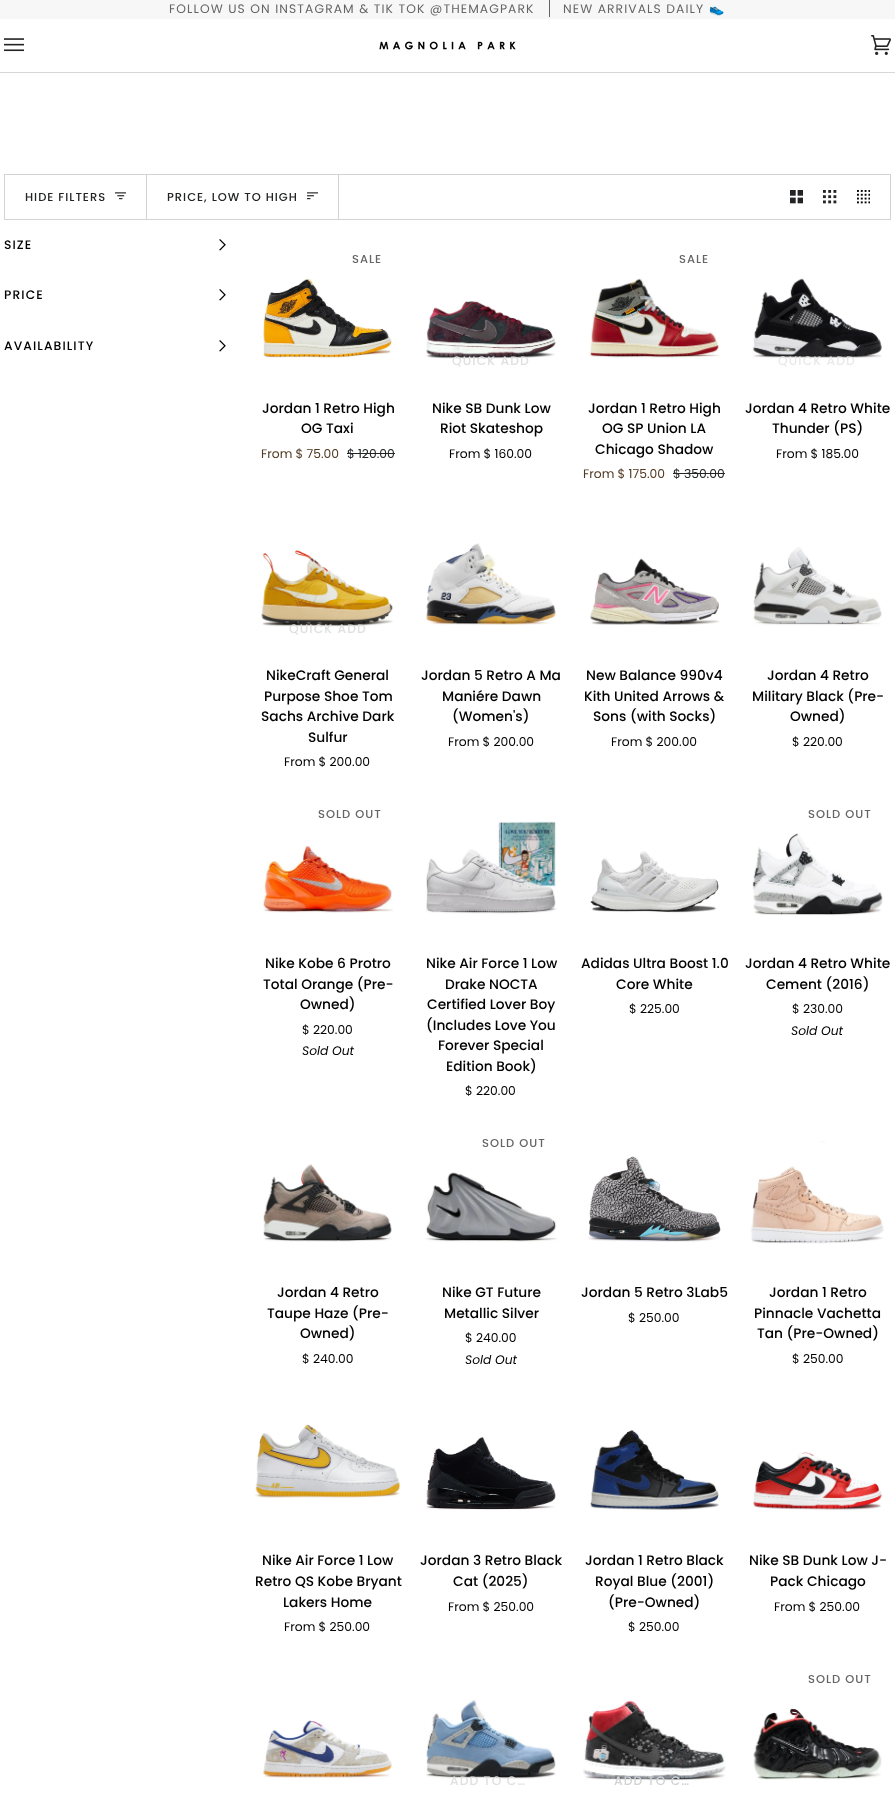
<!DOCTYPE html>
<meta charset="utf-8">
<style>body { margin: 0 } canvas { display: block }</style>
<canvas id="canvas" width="895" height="1798"></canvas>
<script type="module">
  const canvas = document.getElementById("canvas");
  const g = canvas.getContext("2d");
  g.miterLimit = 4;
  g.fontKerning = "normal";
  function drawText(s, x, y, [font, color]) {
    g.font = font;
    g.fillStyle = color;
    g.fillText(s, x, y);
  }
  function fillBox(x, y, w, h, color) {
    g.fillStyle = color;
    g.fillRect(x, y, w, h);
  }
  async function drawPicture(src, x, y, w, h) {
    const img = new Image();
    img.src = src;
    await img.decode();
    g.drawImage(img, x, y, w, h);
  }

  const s1 = ["12.3px Poppins", "#656565"];
  const s2 = ["12.3px Noto Color Emoji", "#656565"];
  const s3 = ["500 11.5px Poppins", "#222324"];
  const s4 = ["500 12.3px Poppins", "#000000"];
  const s5 = ["500 11.5px Poppins", "#656565"];
  const s6 = ["500 13.75px Poppins", "#000000"];
  const s7 = ["12.3px Poppins", "#503821"];
  const s8 = ["12.3px Poppins", "#222324"];
  const s9 = ["500 12.3px Poppins", "#E1E0E0"];
  const s10 = ["12.3px Poppins", "#000000"];
  const s11 = ["500 12.3px Poppins", "#E9E9E9"];
  const s12 = ["italic 12.3px Poppins", "#000000"];
  const s13 = ["500 12.3px Poppins", "#D1D3D5"];

  fillBox(0, 0, 895, 1798, "#FFFFFF");
  fillBox(0, 0, 895, 19, "#F7F7F7");
  g.letterSpacing = "1.1px";
  drawText("FOLLOW US ON INSTAGRAM & TIK TOK @THEMAGPARK", 169, 13, s1);
  fillBox(549, 0, 1, 17, "#656565");
  drawText("NEW ARRIVALS DAILY", 563, 13, s1);
  drawText("👟", 709, 13, s2);
  fillBox(0, 72, 895, 1, "#D7D7D7");
  await drawPicture("pic1.png", 4, 38, 20, 14);
  await drawPicture("pic2.png", 379, 41, 137, 9);
  await drawPicture("pic3.png", 871, 35, 20, 20);
  g.strokeStyle = "#D3D3D3";
  g.strokeRect(4.5, 174.5, 886, 45);
  fillBox(146, 175, 1, 44, "#D3D3D3");
  g.letterSpacing = "1px";
  drawText("HIDE FILTERS", 25, 201, s3);
  await drawPicture("pic4.png", 115, 192, 11, 8);
  fillBox(338, 175, 1, 44, "#D3D3D3");
  drawText("PRICE, LOW TO HIGH", 167, 201, s3);
  await drawPicture("pic5.png", 307, 192, 11, 8);
  await drawPicture("pic6.png", 790, 190, 13, 14);
  await drawPicture("pic7.png", 823, 190, 14, 14);
  await drawPicture("pic8.png", 857, 190, 13, 14);
  g.letterSpacing = "1.1px";
  drawText("SIZE", 4, 249, s4);
  await drawPicture("pic9.png", 219, 239, 7, 12);
  drawText("PRICE", 4, 299, s4);
  await drawPicture("pic9.png", 219, 289, 7, 12);
  drawText("AVAILABILITY", 4, 350, s4);
  await drawPicture("pic9.png", 219, 340, 7, 12);
  g.letterSpacing = "1px";
  drawText("SALE", 352, 263, s5);
  await drawPicture("pic10.png", 263, 278, 129, 80);
  g.letterSpacing = "0px";
  drawText("Jordan 1 Retro High", 262, 413, s6);
  drawText("OG Taxi", 301, 433, s6);
  drawText("From $ 75.00", 261, 458, s7);
  drawText("$ 120.00", 347, 458, s8);
  fillBox(347, 453, 48, 1, "#222324");
  await drawPicture("pic11.png", 426, 301, 130, 58);
  g.letterSpacing = "1.1px";
  drawText("QUICK ADD", 452, 365, s9);
  g.letterSpacing = "0px";
  drawText("Nike SB Dunk Low", 432, 413, s6);
  drawText("Riot Skateshop", 440, 433, s6);
  drawText("From $ 160.00", 449, 458, s10);
  g.letterSpacing = "1px";
  drawText("SALE", 679, 263, s5);
  await drawPicture("pic12.png", 589, 278, 131, 81);
  g.letterSpacing = "0px";
  drawText("Jordan 1 Retro High", 588, 413, s6);
  drawText("OG SP Union LA", 602, 433, s6);
  drawText("Chicago Shadow", 595, 454, s6);
  drawText("From $ 175.00", 583, 478, s7);
  drawText("$ 350.00", 673, 478, s8);
  fillBox(673, 473, 52, 1, "#222324");
  await drawPicture("pic13.png", 753, 278, 129, 80);
  g.letterSpacing = "1.1px";
  drawText("QUICK ADD", 778, 365, s11);
  g.letterSpacing = "0px";
  drawText("Jordan 4 Retro White", 745, 413, s6);
  drawText("Thunder (PS)", 772, 433, s6);
  drawText("From $ 185.00", 776, 458, s10);
  await drawPicture("pic14.png", 261, 550, 132, 77);
  g.letterSpacing = "1.1px";
  drawText("QUICK ADD", 289, 633, s9);
  g.letterSpacing = "0px";
  drawText("NikeCraft General", 266, 680, s6);
  drawText("Purpose Shoe Tom", 264, 701, s6);
  drawText("Sachs Archive Dark", 261, 721, s6);
  drawText("Sulfur", 308, 742, s6);
  drawText("From $ 200.00", 284, 766, s10);
  await drawPicture("pic15.png", 426, 543, 130, 82);
  drawText("Jordan 5 Retro A Ma", 421, 680, s6);
  drawText("Maniére Dawn", 442, 701, s6);
  drawText("(Women's)", 452, 721, s6);
  drawText("From $ 200.00", 448, 746, s10);
  await drawPicture("pic16.png", 590, 558, 130, 67);
  drawText("New Balance 990v4", 586, 680, s6);
  drawText("Kith United Arrows &", 584, 701, s6);
  drawText("Sons (with Socks)", 593, 721, s6);
  drawText("From $ 200.00", 611, 746, s10);
  await drawPicture("pic17.png", 753, 547, 129, 79);
  drawText("Jordan 4 Retro", 767, 680, s6);
  drawText("Military Black (Pre-", 752, 701, s6);
  drawText("Owned)", 790, 721, s6);
  drawText("$ 220.00", 792, 746, s10);
  g.letterSpacing = "1px";
  drawText("SOLD OUT", 318, 818, s5);
  await drawPicture("pic18.png", 263, 845, 130, 68);
  g.letterSpacing = "0px";
  drawText("Nike Kobe 6 Protro", 265, 968, s6);
  drawText("Total Orange (Pre-", 263, 989, s6);
  drawText("Owned)", 300, 1009, s6);
  drawText("$ 220.00", 302, 1034, s10);
  drawText("Sold Out", 302, 1055, s12);
  await drawPicture("pic19.png", 426, 821, 131, 93);
  drawText("Nike Air Force 1 Low", 426, 968, s6);
  drawText("Drake NOCTA", 445, 989, s6);
  drawText("Certified Lover Boy", 427, 1009, s6);
  drawText("(Includes Love You", 426, 1030, s6);
  drawText("Forever Special", 438, 1050, s6);
  drawText("Edition Book)", 446, 1071, s6);
  drawText("$ 220.00", 465, 1095, s10);
  await drawPicture("pic20.png", 590, 851, 129, 62);
  drawText("Adidas Ultra Boost 1.0", 581, 968, s6);
  drawText("Core White", 616, 989, s6);
  drawText("$ 225.00", 629, 1013, s10);
  g.letterSpacing = "1px";
  drawText("SOLD OUT", 808, 818, s5);
  await drawPicture("pic21.png", 752, 833, 131, 83);
  g.letterSpacing = "0px";
  drawText("Jordan 4 Retro White", 745, 968, s6);
  drawText("Cement (2016)", 766, 989, s6);
  drawText("$ 230.00", 792, 1013, s10);
  drawText("Sold Out", 791, 1035, s12);
  await drawPicture("pic22.png", 263, 1164, 129, 78);
  drawText("Jordan 4 Retro", 277, 1297, s6);
  drawText("Taupe Haze (Pre-", 267, 1318, s6);
  drawText("Owned)", 300, 1338, s6);
  drawText("$ 240.00", 302, 1363, s10);
  g.letterSpacing = "1px";
  drawText("SOLD OUT", 482, 1147, s5);
  await drawPicture("pic23.png", 425, 1172, 133, 71);
  g.letterSpacing = "0px";
  drawText("Nike GT Future", 442, 1297, s6);
  drawText("Metallic Silver", 444, 1318, s6);
  drawText("$ 240.00", 465, 1342, s10);
  drawText("Sold Out", 465, 1364, s12);
  await drawPicture("pic24.png", 588, 1156, 133, 86);
  drawText("Jordan 5 Retro 3Lab5", 581, 1297, s6);
  drawText("$ 250.00", 628, 1322, s10);
  await drawPicture("pic25.png", 750, 1141, 134, 103);
  drawText("Jordan 1 Retro", 769, 1297, s6);
  drawText("Pinnacle Vachetta", 754, 1318, s6);
  drawText("Tan (Pre-Owned)", 757, 1338, s6);
  drawText("$ 250.00", 792, 1363, s10);
  await drawPicture("pic26.png", 254, 1424, 147, 75);
  drawText("Nike Air Force 1 Low", 262, 1565, s6);
  drawText("Retro QS Kobe Bryant", 255, 1586, s6);
  drawText("Lakers Home", 283, 1607, s6);
  drawText("From $ 250.00", 284, 1631, s10);
  await drawPicture("pic27.png", 426, 1437, 130, 73);
  drawText("Jordan 3 Retro Black", 420, 1565, s6);
  drawText("Cat (2025)", 453, 1586, s6);
  drawText("From $ 250.00", 448, 1611, s10);
  await drawPicture("pic28.png", 590, 1430, 129, 80);
  drawText("Jordan 1 Retro Black", 585, 1565, s6);
  drawText("Royal Blue (2001)", 595, 1586, s6);
  drawText("(Pre-Owned)", 608, 1607, s6);
  drawText("$ 250.00", 628, 1631, s10);
  await drawPicture("pic29.png", 753, 1452, 129, 58);
  drawText("Nike SB Dunk Low J-", 749, 1565, s6);
  drawText("Pack Chicago", 770, 1586, s6);
  drawText("From $ 250.00", 774, 1611, s10);
  g.letterSpacing = "1px";
  drawText("SOLD OUT", 808, 1683, s5);
  await drawPicture("pic30.png", 753, 1708, 129, 72);
  await drawPicture("pic31.png", 263, 1720, 129, 58);
  await drawPicture("pic32.png", 426, 1700, 130, 79);
  g.letterSpacing = "1.1px";
  drawText("ADD TO C…", 450, 1785, s9);
  await drawPicture("pic33.png", 583, 1700, 143, 81);
  drawText("ADD TO C…", 614, 1785, s13);
</script>
